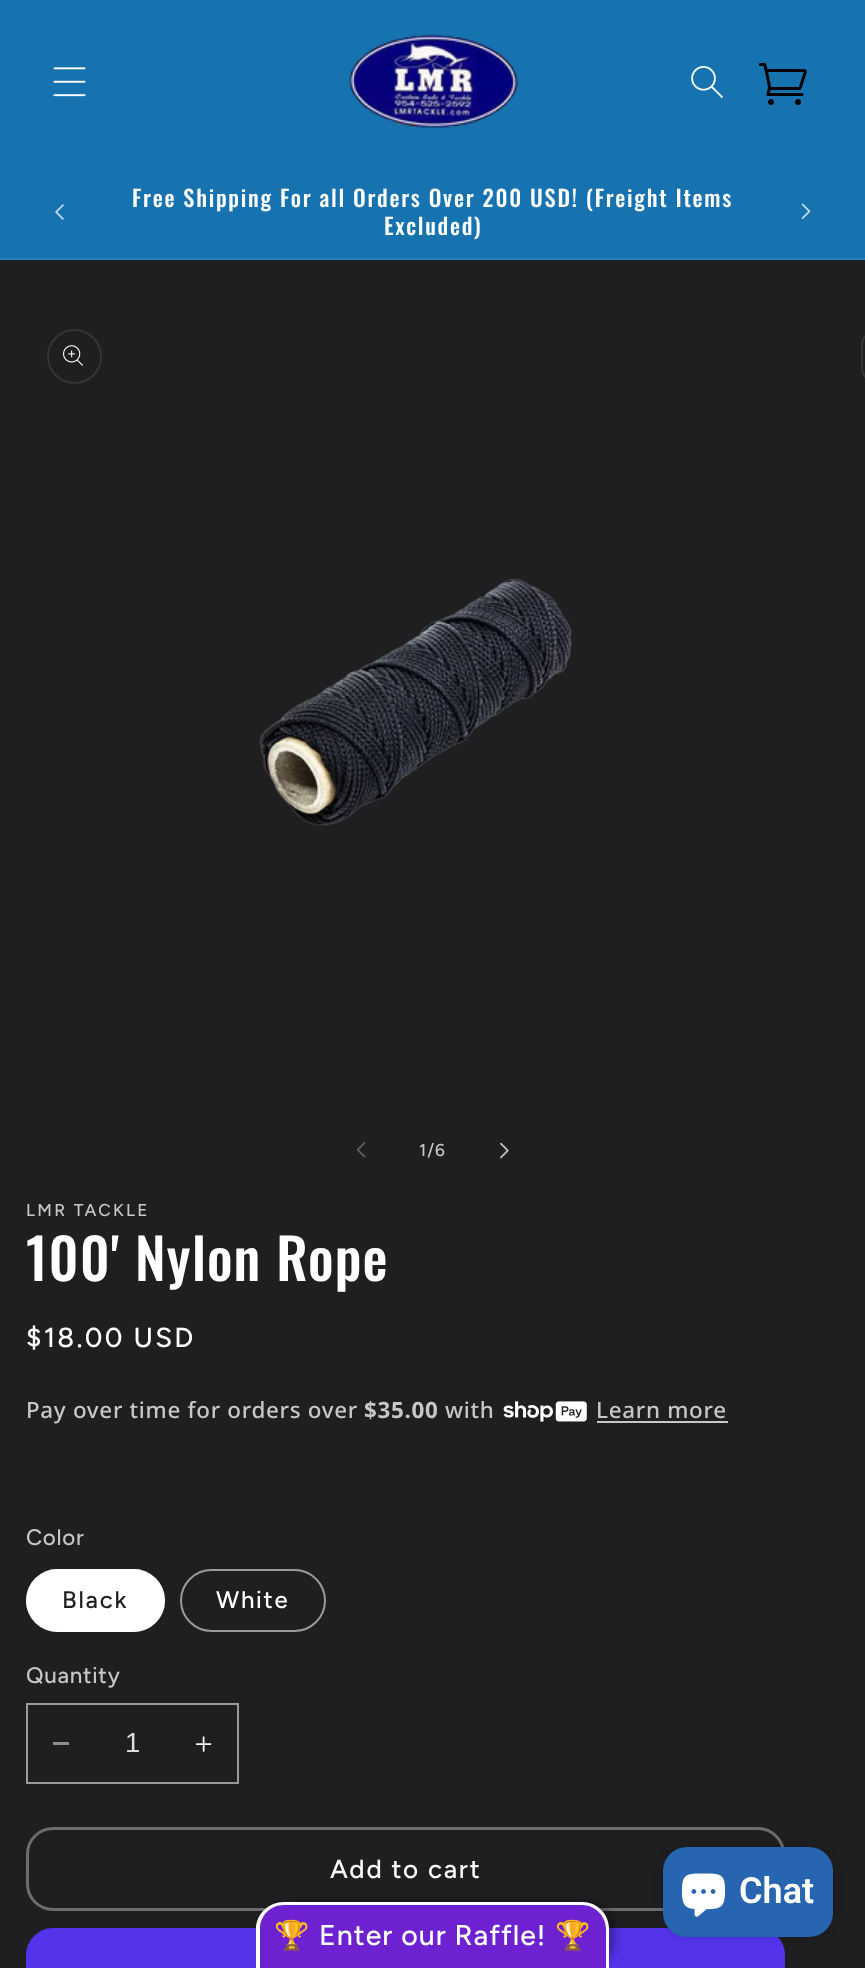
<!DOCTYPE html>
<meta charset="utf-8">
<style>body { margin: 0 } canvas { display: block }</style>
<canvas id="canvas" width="865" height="1968"></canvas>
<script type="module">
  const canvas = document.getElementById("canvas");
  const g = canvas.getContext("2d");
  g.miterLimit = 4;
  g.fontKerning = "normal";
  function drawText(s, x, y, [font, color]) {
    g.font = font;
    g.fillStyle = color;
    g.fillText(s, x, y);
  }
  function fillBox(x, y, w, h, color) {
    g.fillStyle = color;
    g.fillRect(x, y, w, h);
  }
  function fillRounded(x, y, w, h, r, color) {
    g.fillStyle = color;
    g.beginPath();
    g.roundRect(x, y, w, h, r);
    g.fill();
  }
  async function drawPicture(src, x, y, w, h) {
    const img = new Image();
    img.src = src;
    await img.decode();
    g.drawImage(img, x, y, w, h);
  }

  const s1 = ["500 22.5px Oswald", "#FFFFFF"];
  const s2 = ["500 17.25px Figtree", "#C7C7C8"];
  const s3 = ["500 56.25px Oswald", "#FFFFFF"];
  const s4 = ["500 27.5px Figtree", "#FFFFFF"];
  const s5 = ["500 22.4px Noto Sans", "#C7C7C8"];
  const s6 = ["bold 22.4px Noto Sans", "#C7C7C8"];
  const s7 = ["500 22.4px Figtree", "#C7C7C8"];
  const s8 = ["500 24px Figtree", "#1F1F21"];
  const s9 = ["500 24px Figtree", "#FFFFFF"];
  const s10 = ["27.5px Liberation Sans", "#DDDDDE"];
  const s11 = ["500 26px Figtree", "#FFFFFF"];
  const s12 = ["600 36px Roboto", "#FFFFFF"];
  const s13 = ["28.5px Noto Color Emoji", "#FFFFFF"];
  const s14 = ["500 28.5px Figtree", "#FFFFFF"];

  fillBox(0, 0, 865, 1968, "#1F1F21");
  fillBox(0, 0, 865, 258, "#1773B0");
  await drawPicture("pic1.png", 53, 67, 33, 30);
  await drawPicture("pic2.png", 349, 34, 169, 94);
  await drawPicture("pic3.png", 691, 66, 32, 32);
  await drawPicture("pic4.png", 759, 63, 48, 42);
  fillBox(0, 258, 865, 2, "#2A7EB6");
  await drawPicture("pic5.png", 55, 204, 9, 16);
  g.letterSpacing = "1.72px";
  drawText("Free Shipping For all Orders Over 200 USD! (Freight Items", 132, 207, s1);
  drawText("Excluded)", 384, 235, s1);
  await drawPicture("pic6.png", 801, 203, 10, 16);
  g.beginPath();
  g.arc(74.5, 356.5, 26.5, 0, Math.PI * 2);
  g.strokeStyle = "#353537";
  g.lineWidth = 2;
  g.stroke();
  await drawPicture("pic7.png", 63, 345, 20, 21);
  await drawPicture("pic8.png", 259, 578, 314, 248);
  g.beginPath();
  g.roundRect(862, 330, 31, 53, 26);
  g.stroke();
  await drawPicture("pic9.png", 357, 1142, 9, 16);
  g.letterSpacing = "1px";
  drawText("1/6", 419, 1156, s2);
  await drawPicture("pic10.png", 500, 1142, 9, 17);
  g.letterSpacing = "2.25px";
  drawText("LMR TACKLE", 26, 1216, s2);
  g.letterSpacing = "1.1px";
  drawText("100' Nylon Rope", 26, 1281, s3);
  g.letterSpacing = "2.25px";
  drawText("$18.00 USD", 26, 1347, s4);
  g.letterSpacing = "0.7px";
  drawText("Pay over time for orders over", 26, 1418, s5);
  drawText("$35.00", 364, 1418, s6);
  drawText("with", 445, 1418, s5);
  await drawPicture("pic11.png", 503, 1401, 84, 21);
  drawText("Learn more", 596, 1418, s5);
  fillBox(597, 1421, 131, 2, "#C7C7C8");
  drawText("Color", 26, 1545, s7);
  fillRounded(26, 1569, 139, 63, 31.5, "#FFFFFF");
  g.beginPath();
  g.roundRect(27, 1570, 137, 61, 30.5);
  g.strokeStyle = "rgba(255, 255, 255, 0.55)";
  g.stroke();
  g.letterSpacing = "1.72px";
  drawText("Black", 62, 1608, s8);
  g.beginPath();
  g.roundRect(181, 1570, 144, 61, 30.5);
  g.strokeStyle = "#9A9A9B";
  g.stroke();
  drawText("White", 216, 1608, s9);
  g.letterSpacing = "0.7px";
  drawText("Quantity", 26, 1683, s7);
  fillBox(53, 1742, 16, 3, "#8F8F90");
  await drawPicture("pic12.png", 195, 1736, 17, 16);
  g.strokeRect(27, 1704, 211, 79);
  g.letterSpacing = "0px";
  drawText("1", 125, 1752, s10);
  g.beginPath();
  g.roundRect(27.5, 1828.5, 756, 81, 25.5);
  g.strokeStyle = "#6D6D6F";
  g.lineWidth = 3;
  g.stroke();
  g.letterSpacing = "1.72px";
  drawText("Add to cart", 330, 1878, s11);
  fillRounded(26, 1928, 759, 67, 27, "#5433EB");
  g.fillStyle = "rgba(0, 0, 0, 0.15)";
  g.filter = "blur(4px)";
  g.beginPath();
  g.roundRect(663, 1847, 170, 90, 24);
  g.fill();
  g.filter = "none";
  fillRounded(663, 1847, 170, 90, 24, "#2765B1");
  await drawPicture("pic13.png", 681, 1873, 45, 44);
  g.letterSpacing = "0px";
  drawText("Chat", 739, 1903, s12);
  g.fillStyle = "rgba(0, 0, 0, 0.3)";
  g.filter = "blur(4px)";
  g.beginPath();
  g.roundRect(263, 1902, 352, 66, 27);
  g.fill();
  g.filter = "none";
  g.fillStyle = "#6D21D1";
  g.beginPath();
  g.roundRect(257, 1902, 352, 66, [27, 27, 0, 0]);
  g.fill();
  g.fillStyle = "#FFFFFF";
  g.beginPath();
  g.moveTo(284, 1902);
  g.lineTo(582, 1902);
  g.bezierCurveTo(597, 1902, 609, 1914, 609, 1929);
  g.lineTo(609, 1968);
  g.lineTo(256, 1968);
  g.lineTo(256, 1929);
  g.bezierCurveTo(256, 1914, 269, 1902, 284, 1902);
  g.closePath();
  g.moveTo(284, 1905);
  g.lineTo(582, 1905);
  g.bezierCurveTo(595, 1905, 606, 1916, 606, 1929);
  g.lineTo(606, 1968);
  g.lineTo(260, 1968);
  g.lineTo(260, 1929);
  g.bezierCurveTo(260, 1916, 270, 1905, 284, 1905);
  g.closePath();
  g.fill("evenodd");
  g.letterSpacing = "1px";
  drawText("🏆", 274, 1945, s13);
  drawText("Enter our Raffle!", 319, 1945, s14);
  drawText("🏆", 555, 1945, s13);
</script>
